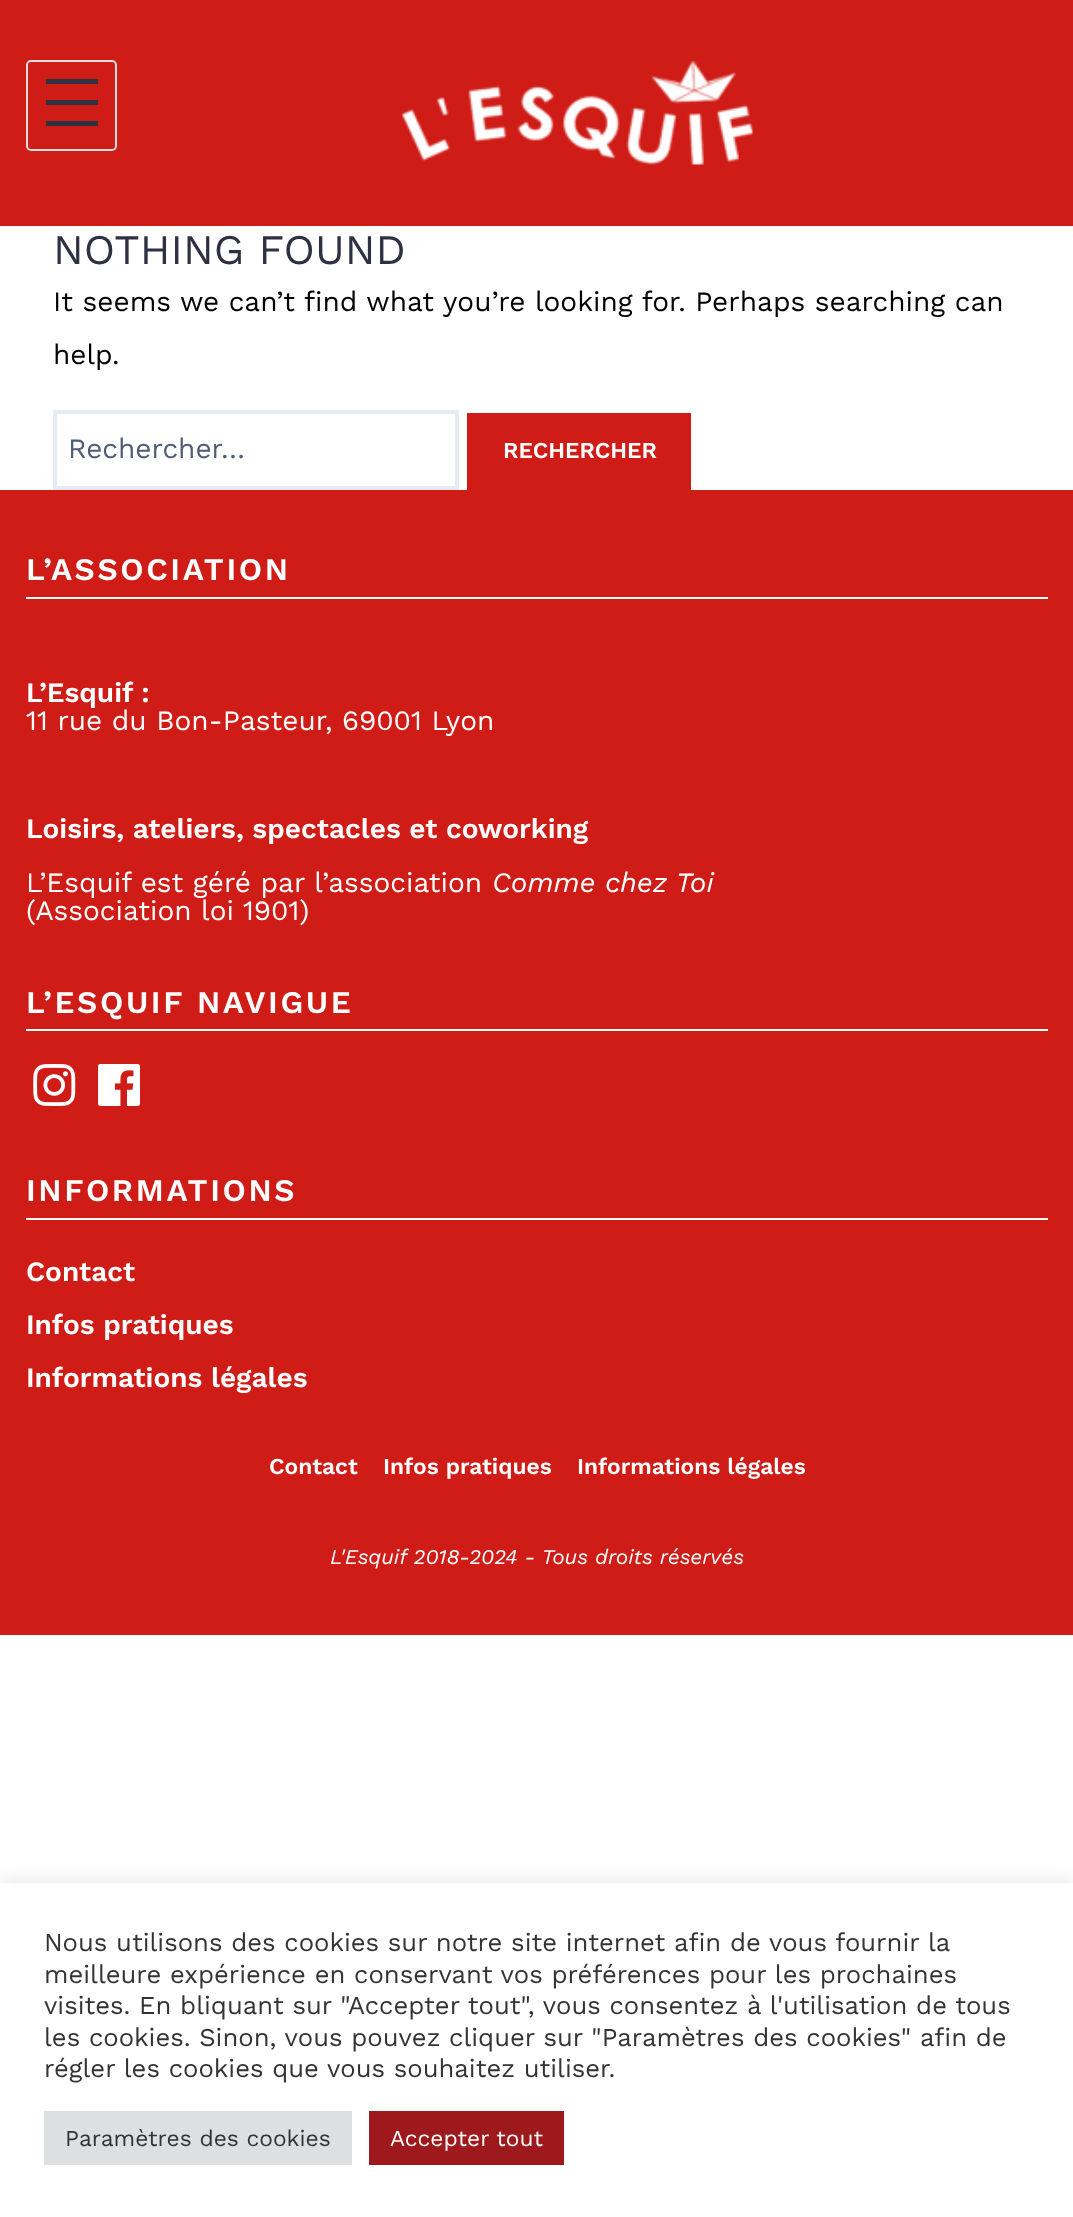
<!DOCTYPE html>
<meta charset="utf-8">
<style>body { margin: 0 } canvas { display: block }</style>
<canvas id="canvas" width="1073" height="2217"></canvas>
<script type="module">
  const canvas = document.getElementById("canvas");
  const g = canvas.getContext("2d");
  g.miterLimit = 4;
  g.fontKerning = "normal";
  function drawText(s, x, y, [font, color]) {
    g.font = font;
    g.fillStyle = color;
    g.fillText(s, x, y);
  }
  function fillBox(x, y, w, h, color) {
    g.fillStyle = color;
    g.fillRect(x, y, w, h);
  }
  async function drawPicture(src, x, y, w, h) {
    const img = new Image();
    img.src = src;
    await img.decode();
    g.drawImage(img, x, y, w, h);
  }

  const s1 = ["42px Work Sans", "#2D3142"];
  const s2 = ["28px Work Sans", "#000000"];
  const s3 = ["28px Work Sans", "#4F5D75"];
  const s4 = ["600 22.75px Work Sans", "#FFFFFF"];
  const s5 = ["600 31.5px Work Sans", "#FFFFFF"];
  const s6 = ["600 28px Work Sans", "#FFFFFF"];
  const s7 = ["28px Work Sans", "#FFFFFF"];
  const s8 = ["italic 28px Work Sans", "#FFFFFF"];
  const s9 = ["italic 21px Work Sans", "#FFFFFF"];
  const s10 = ["25.65px Work Sans", "#333333"];
  const s11 = ["22.75px Work Sans", "#333333"];
  const s12 = ["22.75px Work Sans", "#FFFFFF"];

  fillBox(0, 0, 1073, 2217, "#FFFFFF");
  fillBox(0, 0, 1073, 226, "#CF1C17");
  g.beginPath();
  g.roundRect(27, 61, 89, 89, 4);
  g.strokeStyle = "#DDDDDD";
  g.lineWidth = 2;
  g.stroke();
  fillBox(46, 79, 52, 5, "#2D3142");
  fillBox(46, 100, 52, 5, "#2D3142");
  fillBox(46, 121, 52, 5, "#2D3142");
  await drawPicture("pic1.png", 402, 61, 351, 104);
  drawText("NOTHING FOUND", 53, 264, s1);
  drawText("It seems we can’t find what you’re looking for. Perhaps searching can", 53, 311, s2);
  drawText("help.", 53, 364, s2);
  g.strokeStyle = "#E5EAF5";
  g.lineWidth = 4;
  g.strokeRect(55, 412, 402, 76);
  drawText("Rechercher…", 68, 458, s3);
  fillBox(467, 413, 224, 77, "#CF1C17");
  drawText("RECHERCHER", 503, 458, s4);
  fillBox(0, 490, 1073, 1145, "#CF1C17");
  fillBox(26, 597, 1022, 2, "#FFFFFF");
  g.letterSpacing = "2.6px";
  drawText("L’ASSOCIATION", 26, 580, s5);
  g.letterSpacing = "0px";
  drawText("L’Esquif :", 26, 702, s6);
  drawText("11 rue du Bon-Pasteur, 69001 Lyon", 26, 730, s7);
  drawText("Loisirs, ateliers, spectacles et coworking", 26, 838, s6);
  drawText("L’Esquif est géré par l’association", 26, 892, s7);
  drawText("Comme chez Toi", 492, 892, s8);
  drawText("(Association loi 1901)", 26, 920, s7);
  fillBox(26, 1029, 1022, 2, "#FFFFFF");
  g.letterSpacing = "2.6px";
  drawText("L’ESQUIF NAVIGUE", 26, 1013, s5);
  await drawPicture("pic2.png", 33, 1064, 43, 42);
  await drawPicture("pic3.png", 98, 1064, 42, 42);
  fillBox(26, 1218, 1022, 2, "#FFFFFF");
  drawText("INFORMATIONS", 26, 1201, s5);
  g.letterSpacing = "0px";
  drawText("Contact", 26, 1281, s6);
  drawText("Infos pratiques", 26, 1334, s6);
  drawText("Informations légales", 26, 1387, s6);
  drawText("Contact", 269, 1474, s4);
  drawText("Infos pratiques", 383, 1474, s4);
  drawText("Informations légales", 577, 1474, s4);
  drawText("L'Esquif 2018-2024 - Tous droits réservés", 330, 1564, s9);
  g.save();
  g.beginPath();
  g.rect(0, 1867, 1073, 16);
  g.clip();
  g.fillStyle = "rgba(172, 171, 171, 0.3)";
  g.filter = "blur(9px)";
  g.beginPath();
  g.rect(0, 1881, 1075, 335);
  g.fill();
  g.filter = "none";
  g.restore();
  drawText("Nous utilisons des cookies sur notre site internet afin de vous fournir la", 44, 1951, s10);
  drawText("meilleure expérience en conservant vos préférences pour les prochaines", 44, 1983, s10);
  drawText("visites. En bliquant sur \"Accepter tout\", vous consentez à l'utilisation de tous", 44, 2014, s10);
  drawText("les cookies. Sinon, vous pouvez cliquer sur \"Paramètres des cookies\" afin de", 44, 2046, s10);
  drawText("régler les cookies que vous souhaitez utiliser.", 44, 2077, s10);
  fillBox(44, 2111, 308, 54, "#DEDFE0");
  drawText("Paramètres des cookies", 65, 2146, s11);
  fillBox(369, 2111, 195, 54, "#9E191C");
  drawText("Accepter tout", 390, 2146, s12);
</script>
